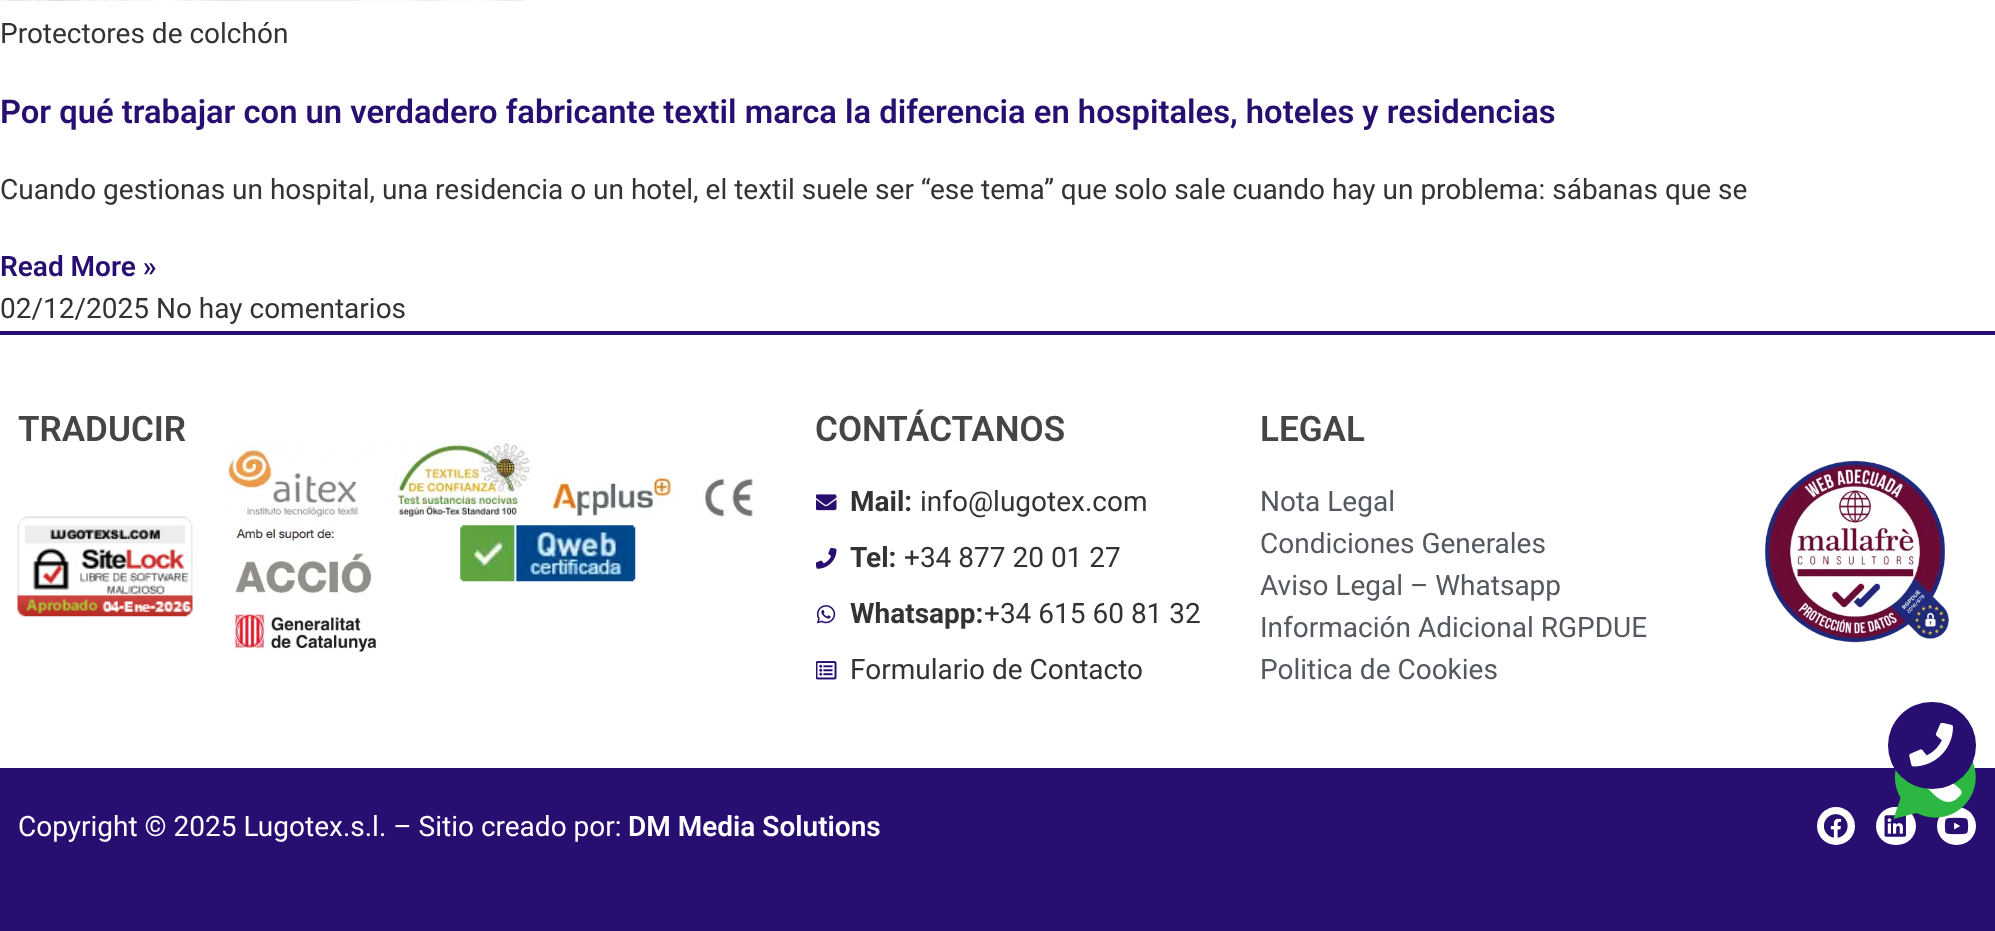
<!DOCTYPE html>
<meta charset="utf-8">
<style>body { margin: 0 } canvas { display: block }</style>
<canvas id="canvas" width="1995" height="931"></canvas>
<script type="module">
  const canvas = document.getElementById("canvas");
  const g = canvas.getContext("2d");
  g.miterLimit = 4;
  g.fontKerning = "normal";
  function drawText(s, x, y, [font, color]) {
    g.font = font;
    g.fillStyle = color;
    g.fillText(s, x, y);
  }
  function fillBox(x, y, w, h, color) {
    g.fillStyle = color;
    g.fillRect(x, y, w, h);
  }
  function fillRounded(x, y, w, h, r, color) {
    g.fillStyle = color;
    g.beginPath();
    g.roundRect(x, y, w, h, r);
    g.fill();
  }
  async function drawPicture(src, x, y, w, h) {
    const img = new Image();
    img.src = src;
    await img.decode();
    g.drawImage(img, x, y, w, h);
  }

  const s1 = ["28px Roboto", "#333333"];
  const s2 = ["600 32.75px Roboto", "#290E72"];
  const s3 = ["600 28px Roboto", "#290E72"];
  const s4 = ["600 35px Roboto", "#454545"];
  const s5 = ["bold 28px Roboto", "#333333"];
  const s6 = ["28px Roboto", "#54595F"];
  const s7 = ["28px Roboto", "#FFFFFF"];
  const s8 = ["600 28px Roboto", "#FFFFFF"];

  fillBox(0, 0, 1995, 931, "#FFFFFF");
  await drawPicture("pic1.png", 0, 0, 525, 1);
  drawText("Protectores de colchón", 0, 43, s1);
  drawText("Por qué trabajar con un verdadero fabricante textil marca la diferencia en hospitales, hoteles y residencias", 0, 123, s2);
  drawText("Cuando gestionas un hospital, una residencia o un hotel, el textil suele ser “ese tema” que solo sale cuando hay un problema: sábanas que se", 0, 199, s1);
  drawText("Read More »", 0, 276, s3);
  drawText("02/12/2025 No hay comentarios", 0, 318, s1);
  fillBox(0, 331, 1995, 4, "#290E72");
  drawText("TRADUCIR", 18, 441, s4);
  await drawPicture("pic2.png", 17, 516, 176, 101);
  await drawPicture("pic3.png", 227, 443, 526, 74);
  await drawPicture("pic4.png", 233, 525, 144, 128);
  await drawPicture("pic5.png", 460, 525, 176, 57);
  drawText("CONTÁCTANOS", 815, 441, s4);
  await drawPicture("pic6.png", 816, 494, 21, 17);
  drawText("Mail:", 850, 511, s5);
  drawText("info@lugotex.com", 920, 511, s1);
  await drawPicture("pic7.png", 816, 548, 21, 21);
  drawText("Tel:", 850, 567, s5);
  drawText("+34 877 20 01 27", 904, 567, s1);
  await drawPicture("pic8.png", 816, 605, 20, 19);
  drawText("Whatsapp:", 850, 623, s5);
  drawText("+34 615 60 81 32", 984, 623, s1);
  await drawPicture("pic9.png", 816, 661, 21, 19);
  drawText("Formulario de Contacto", 850, 679, s1);
  drawText("LEGAL", 1260, 441, s4);
  drawText("Nota Legal", 1260, 511, s6);
  drawText("Condiciones Generales", 1260, 553, s6);
  drawText("Aviso Legal – Whatsapp", 1260, 595, s6);
  drawText("Información Adicional RGPDUE", 1260, 637, s6);
  drawText("Politica de Cookies", 1260, 679, s6);
  await drawPicture("pic10.png", 1765, 460, 184, 183);
  fillBox(0, 768, 1995, 163, "#290E72");
  drawText("Copyright © 2025 Lugotex.s.l. – Sitio creado por:", 18, 836, s7);
  drawText("DM Media Solutions", 628, 836, s8);
  g.beginPath();
  g.arc(1836, 826, 19, 0, Math.PI * 2);
  g.fill();
  await drawPicture("pic11.png", 1824, 814, 24, 24);
  fillRounded(1876, 807, 40, 38, 19, "#FFFFFF");
  await drawPicture("pic12.png", 1884, 815, 22, 22);
  fillRounded(1937, 807, 39, 38, 19, "#FFFFFF");
  await drawPicture("pic13.png", 1944, 817, 25, 18);
  await drawPicture("pic15.png", 1894, 761, 82, 58);
  fillRounded(1888, 702, 88, 87, 43.5, "#290E72");
  await drawPicture("pic14.png", 1909, 723, 44, 44);
</script>
